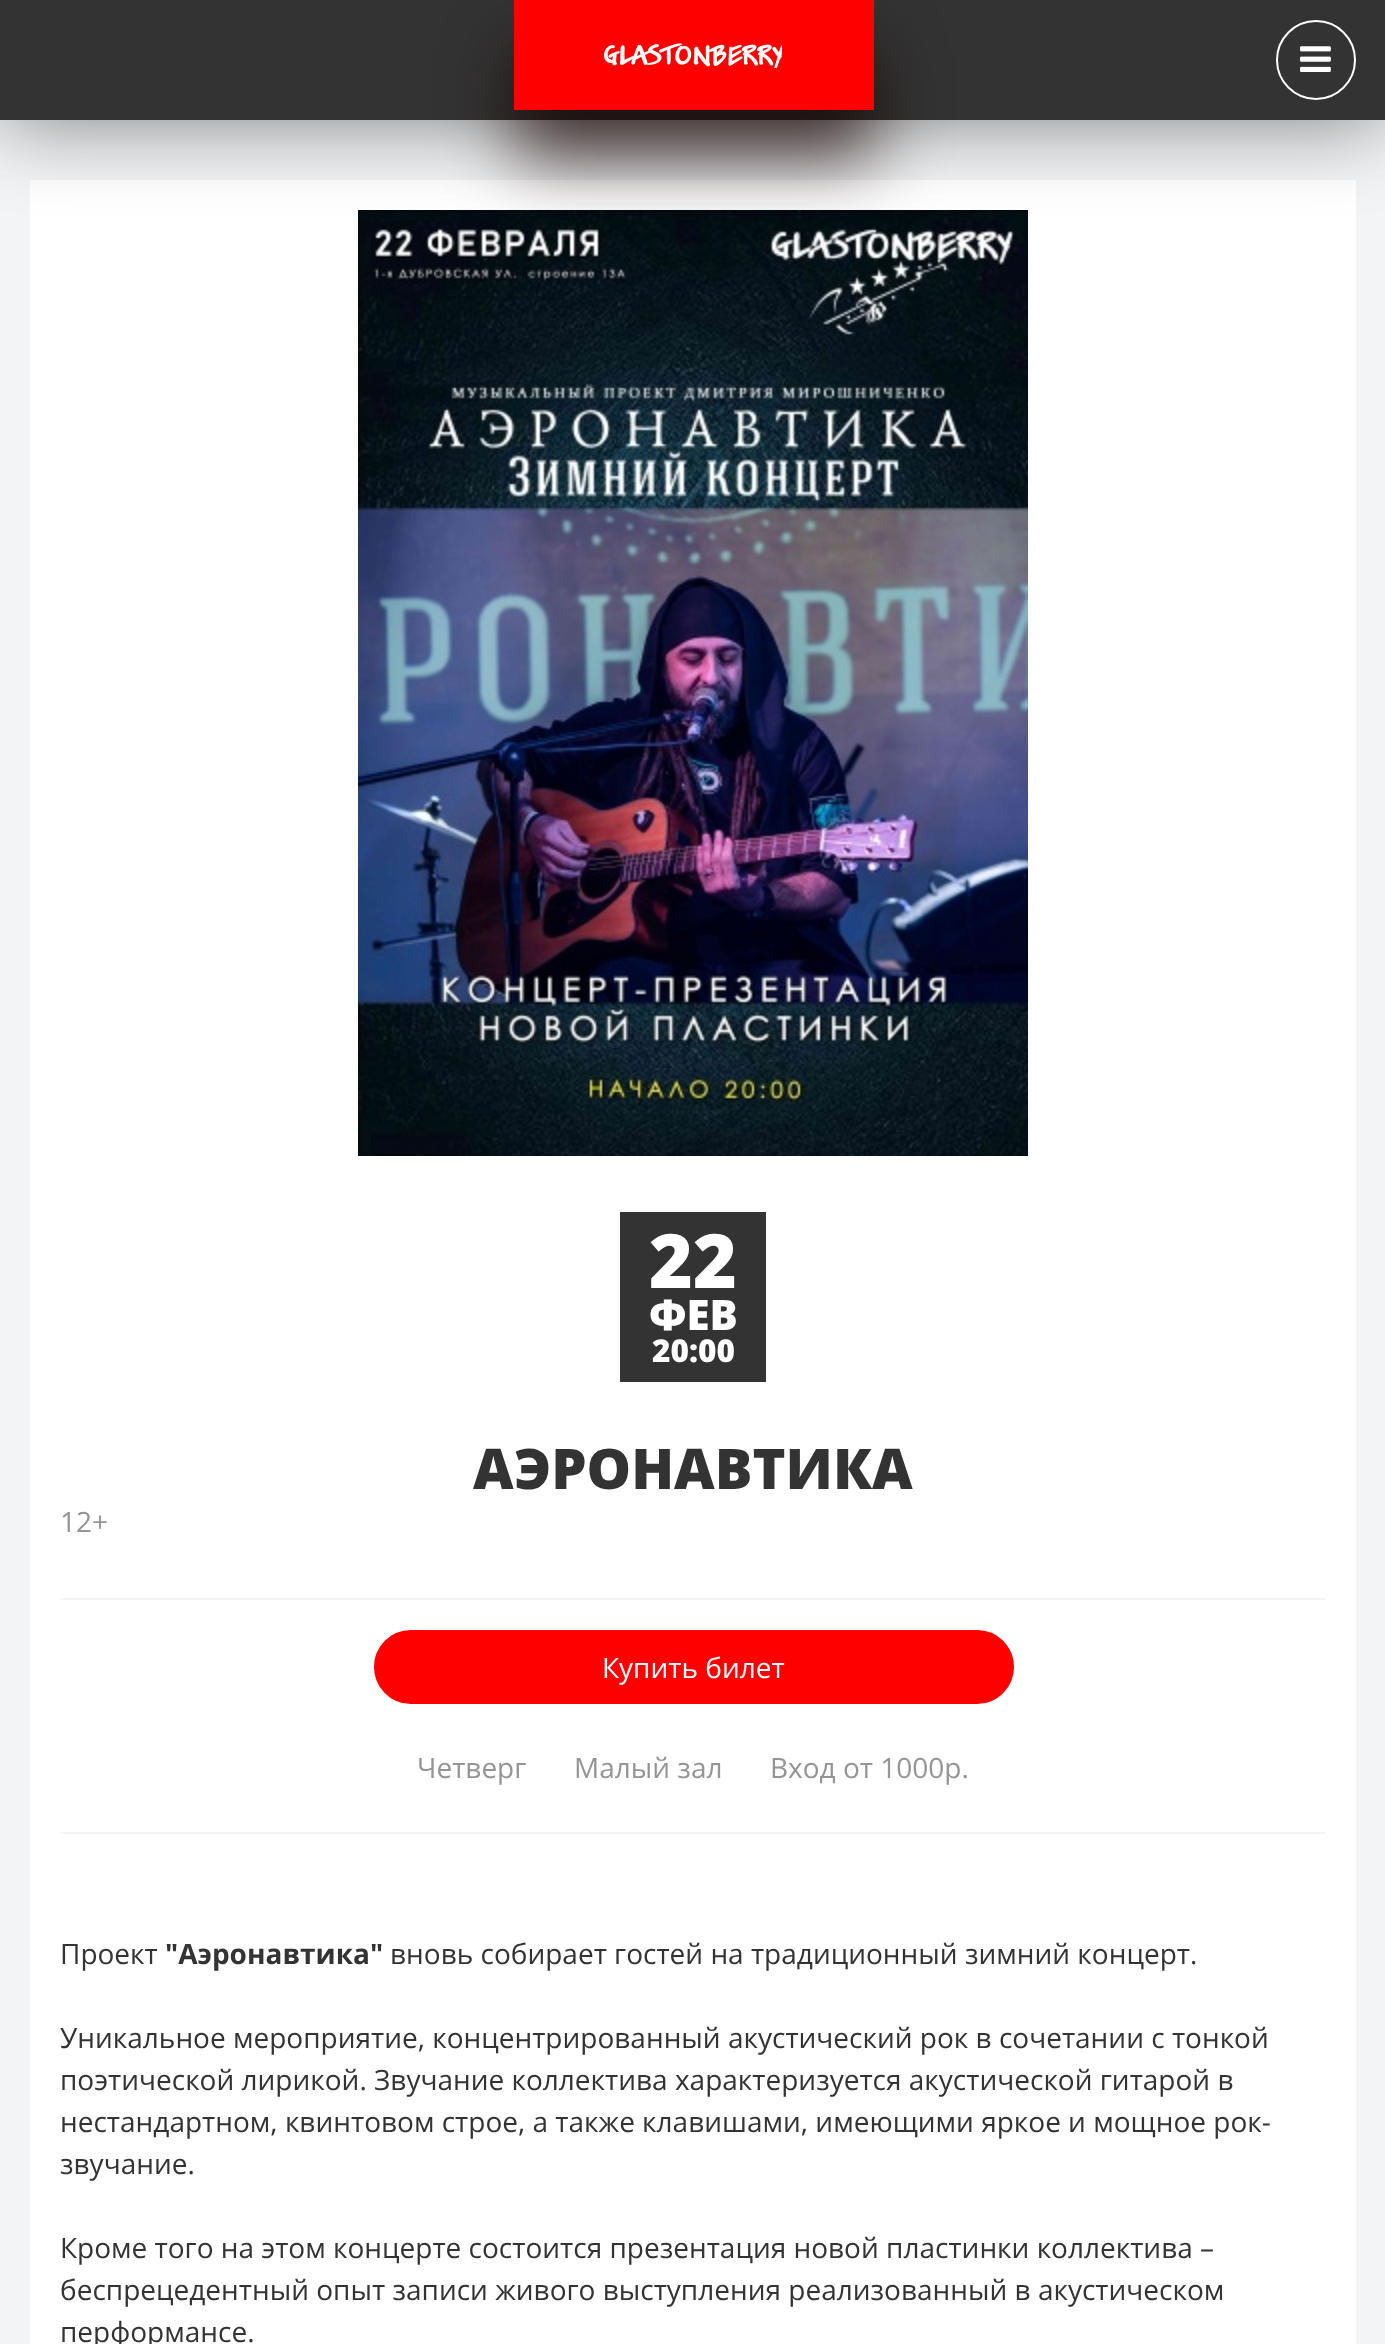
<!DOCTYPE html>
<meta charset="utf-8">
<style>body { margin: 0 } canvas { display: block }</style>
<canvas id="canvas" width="1385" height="2344"></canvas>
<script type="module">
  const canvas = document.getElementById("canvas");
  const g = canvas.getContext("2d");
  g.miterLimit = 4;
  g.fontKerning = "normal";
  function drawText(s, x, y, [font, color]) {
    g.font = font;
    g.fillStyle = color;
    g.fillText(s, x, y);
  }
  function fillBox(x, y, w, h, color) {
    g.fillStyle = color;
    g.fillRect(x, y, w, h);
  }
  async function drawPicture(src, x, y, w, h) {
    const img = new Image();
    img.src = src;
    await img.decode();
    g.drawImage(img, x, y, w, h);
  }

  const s1 = ["800 75px Open Sans", "#FFFFFF"];
  const s2 = ["800 42px Open Sans", "#FFFFFF"];
  const s3 = ["800 31.5px Open Sans", "#FFFFFF"];
  const s4 = ["800 56px Open Sans", "#333333"];
  const s5 = ["28px Open Sans", "#959595"];
  const s6 = ["28px Open Sans", "#FFFFFF"];
  const s7 = ["28px Open Sans", "#333333"];
  const s8 = ["bold 28px Open Sans", "#333333"];

  fillBox(0, 0, 1385, 2344, "#F2F4F5");
  fillBox(30, 180, 1326, 2164, "#FFFFFF");
  await drawPicture("pic3.png", 358, 210, 670, 946);
  g.fillStyle = "rgba(0, 0, 0, 0.5)";
  g.filter = "blur(42px)";
  g.beginPath();
  g.rect(0, 0, 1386, 120);
  g.fill();
  g.filter = "none";
  fillBox(0, 0, 1385, 120, "#333333");
  g.fillStyle = "rgba(20, 0, 0, 0.7)";
  g.filter = "blur(35px)";
  g.beginPath();
  g.rect(514, 50, 360, 110);
  g.fill();
  g.filter = "none";
  fillBox(514, 0, 360, 110, "#FF0000");
  await drawPicture("pic1.png", 604, 43, 178, 25);
  g.beginPath();
  g.arc(1316, 60, 39, 0, Math.PI * 2);
  g.strokeStyle = "#FFFFFF";
  g.lineWidth = 2;
  g.stroke();
  await drawPicture("pic2.png", 1300, 46, 31, 26);
  fillBox(620, 1212, 146, 170, "#333333");
  drawText("22", 649, 1288, s1);
  drawText("ФЕВ", 649, 1330, s2);
  drawText("20:00", 652, 1362, s3);
  drawText("АЭРОНАВТИКА", 473, 1489, s4);
  drawText("12+", 60, 1532, s5);
  fillBox(60, 1598, 1266, 2, "#F2F4F5");
  fillBox(60, 1832, 1266, 2, "#F2F4F5");
  g.fillStyle = "#FF0000";
  g.beginPath();
  g.roundRect(375, 1631, 638, 72, 36);
  g.fill();
  g.strokeStyle = "#FF0000";
  g.stroke();
  drawText("Купить билет", 602, 1678, s6);
  drawText("Четверг", 417, 1778, s5);
  drawText("Малый зал", 574, 1778, s5);
  drawText("Вход от 1000р.", 770, 1778, s5);
  drawText("Проект", 60, 1964, s7);
  drawText("\"Аэронавтика\"", 165, 1964, s8);
  drawText("вновь собирает гостей на традиционный зимний концерт.", 390, 1964, s7);
  drawText("Уникальное мероприятие, концентрированный акустический рок в сочетании с тонкой", 60, 2048, s7);
  drawText("поэтической лирикой. Звучание коллектива характеризуется акустической гитарой в", 60, 2090, s7);
  drawText("нестандартном, квинтовом строе, а также клавишами, имеющими яркое и мощное рок-", 60, 2132, s7);
  drawText("звучание.", 60, 2174, s7);
  drawText("Кроме того на этом концерте состоится презентация новой пластинки коллектива –", 60, 2258, s7);
  drawText("беспрецедентный опыт записи живого выступления реализованный в акустическом", 60, 2300, s7);
  drawText("перформансе.", 60, 2342, s7);
</script>
